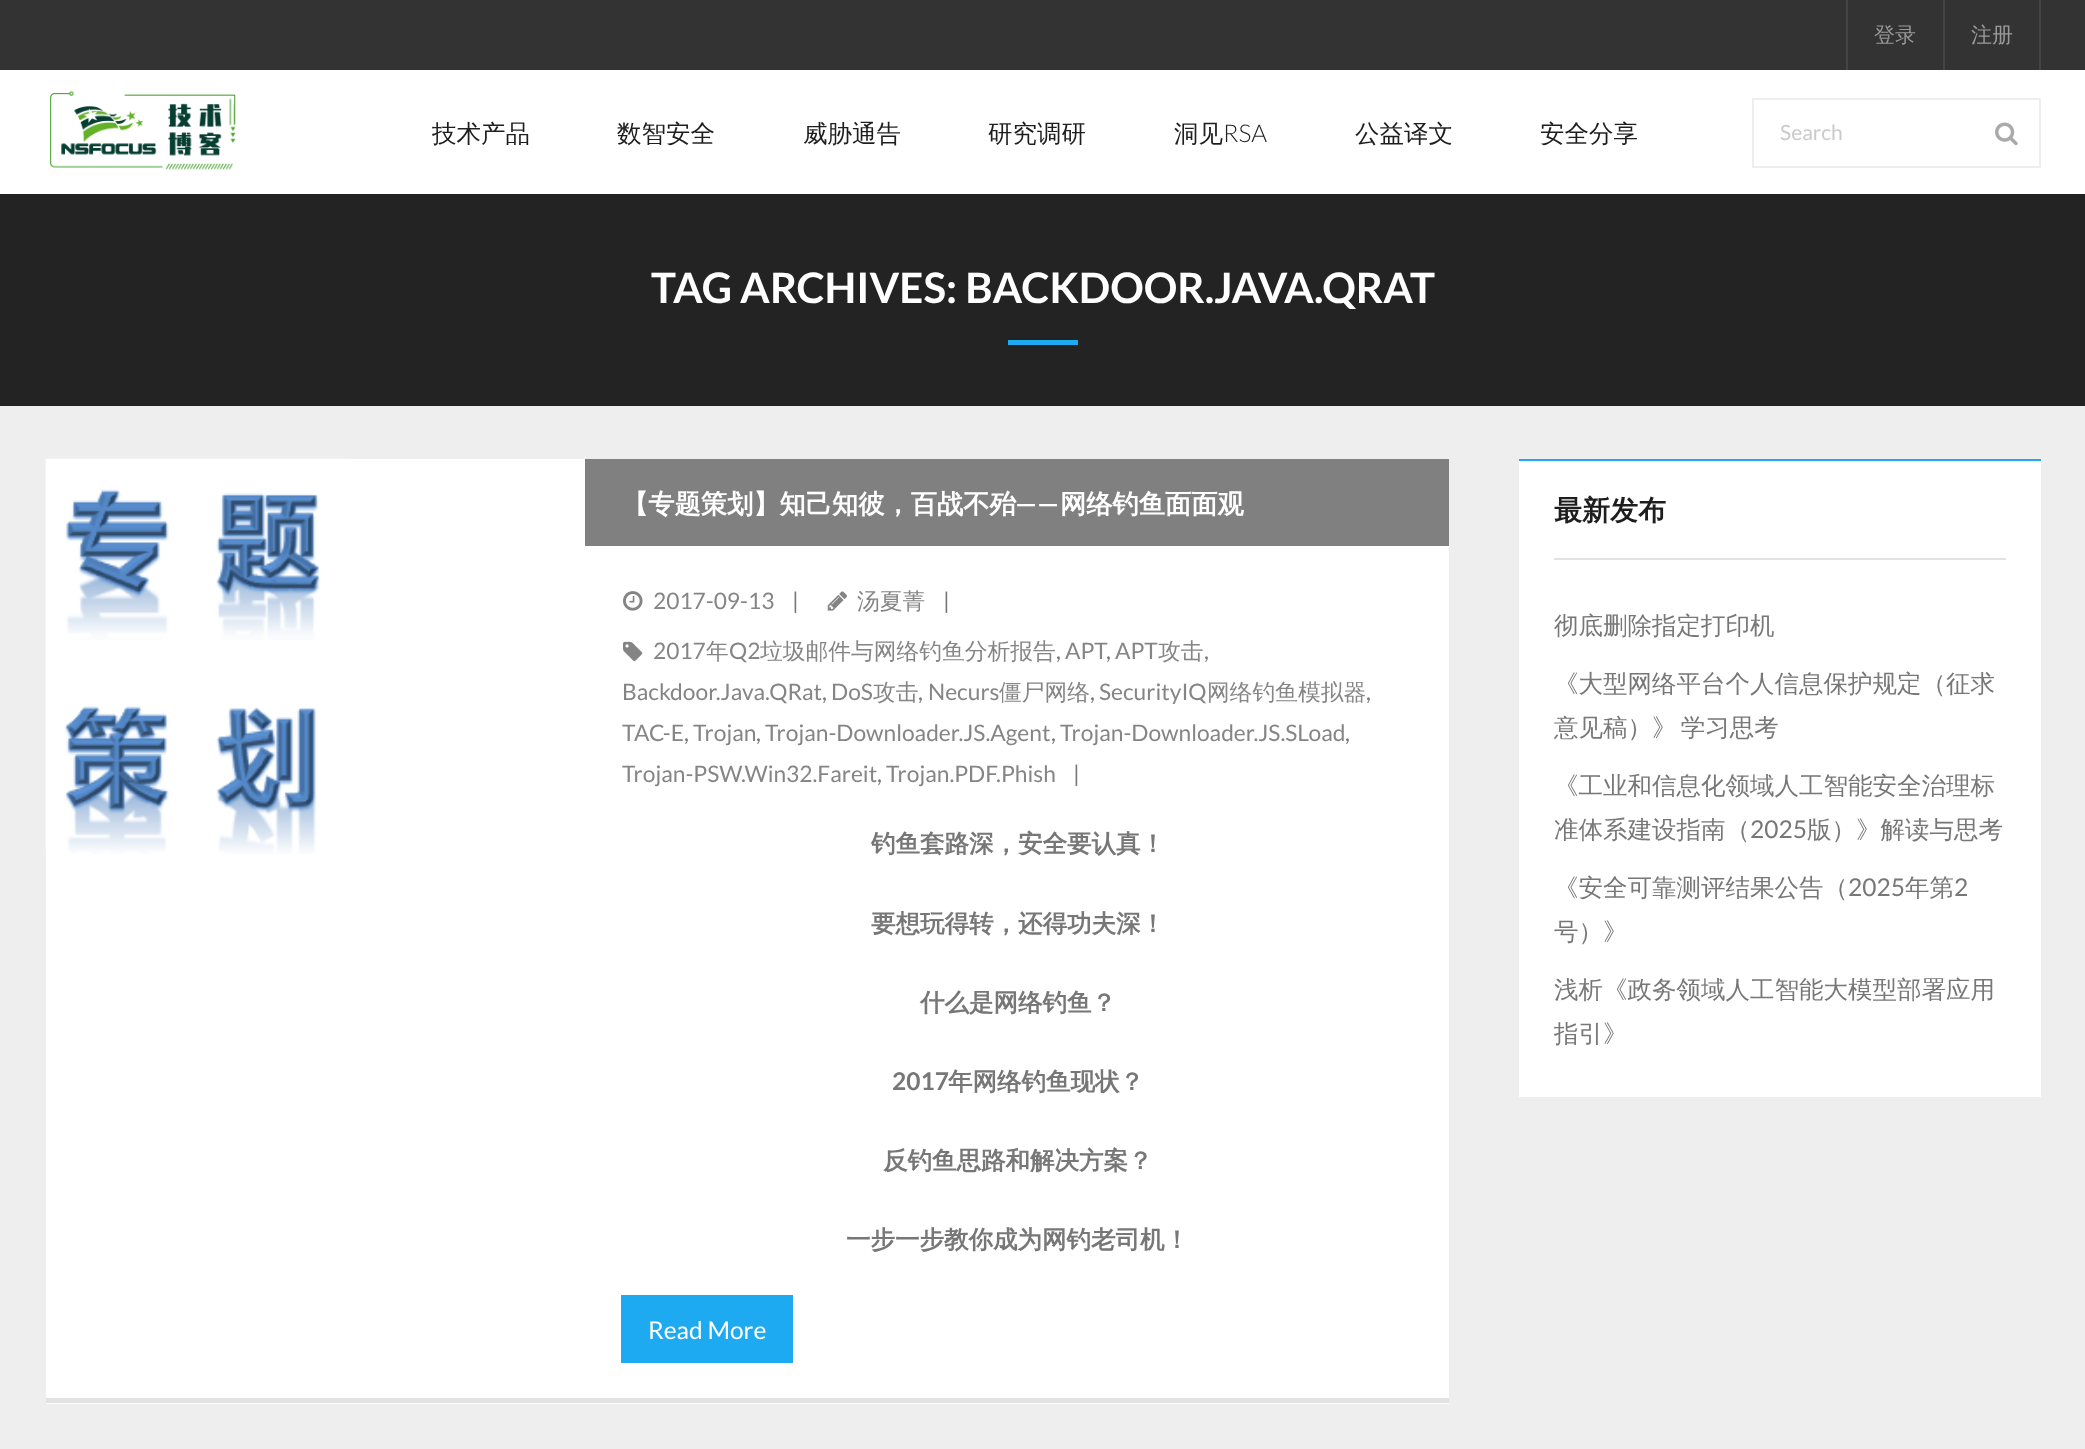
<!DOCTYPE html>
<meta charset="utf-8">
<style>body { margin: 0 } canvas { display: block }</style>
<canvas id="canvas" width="2085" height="1449"></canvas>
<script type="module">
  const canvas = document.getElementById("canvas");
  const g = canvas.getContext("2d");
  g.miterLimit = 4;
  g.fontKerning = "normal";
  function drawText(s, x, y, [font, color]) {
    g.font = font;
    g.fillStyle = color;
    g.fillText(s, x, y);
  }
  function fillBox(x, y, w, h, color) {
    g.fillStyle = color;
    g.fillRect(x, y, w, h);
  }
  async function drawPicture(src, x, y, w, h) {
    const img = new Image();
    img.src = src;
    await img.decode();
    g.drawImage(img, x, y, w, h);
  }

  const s1 = ["500 21px WenQuanYi Zen Hei", "#999999"];
  const s2 = ["500 24.5px WenQuanYi Zen Hei", "#1E1E1E"];
  const s3 = ["300 24.5px Lato", "#1E1E1E"];
  const s4 = ["21px Lato", "#CACACA"];
  const s5 = ["bold 42px Lato", "#FFFFFF"];
  const s6 = ["bold 26.25px WenQuanYi Zen Hei", "#FFFFFF"];
  const s7 = ["bold 26.25px Lato", "#FFFFFF"];
  const s8 = ["22.75px Lato", "#858585"];
  const s9 = ["22.75px Lato", "#777777"];
  const s10 = ["500 22.75px WenQuanYi Zen Hei", "#858585"];
  const s11 = ["bold 24.5px WenQuanYi Zen Hei", "#777777"];
  const s12 = ["bold 24.5px Lato", "#777777"];
  const s13 = ["24.5px Lato", "#FFFFFF"];
  const s14 = ["bold 28px WenQuanYi Zen Hei", "#1E1E1E"];
  const s15 = ["500 24.5px WenQuanYi Zen Hei", "#777777"];
  const s16 = ["24.5px Lato", "#777777"];

  fillBox(0, 0, 2085, 1449, "#EEEEEE");
  fillBox(0, 0, 2085, 70, "#333333");
  fillBox(1846, 0, 2, 70, "#444444");
  drawText("登录", 1874, 42, s1);
  fillBox(2039, 0, 2, 70, "#444444");
  fillBox(1943, 0, 2, 70, "#444444");
  drawText("注册", 1971, 42, s1);
  fillBox(0, 70, 2085, 124, "#FFFFFF");
  await drawPicture("pic1.png", 50, 91, 186, 79);
  drawText("技术产品", 432, 142, s2);
  drawText("数智安全", 617, 142, s2);
  drawText("威胁通告", 803, 142, s2);
  drawText("研究调研", 988, 142, s2);
  drawText("洞见", 1174, 142, s2);
  drawText("RSA", 1223, 142, s3);
  drawText("公益译文", 1355, 142, s2);
  drawText("安全分享", 1540, 142, s2);
  g.strokeStyle = "#EEEEEE";
  g.lineWidth = 2;
  g.strokeRect(1753, 99, 287, 68);
  drawText("Search", 1780, 140, s4);
  await drawPicture("pic2.png", 1995, 122, 23, 24);
  fillBox(0, 194, 2085, 212, "#232323");
  drawText("TAG ARCHIVES: BACKDOOR.JAVA.QRAT", 651, 303, s5);
  fillBox(1008, 340, 70, 5, "#1EAAF1");
  fillBox(46, 546, 1403, 858, "#FFFFFF");
  fillBox(46, 1398, 1403, 5, "#E2E2E2");
  fillBox(350, 459, 235, 87, "#FFFFFF");
  await drawPicture("pic3.png", 45, 458, 305, 396);
  fillBox(585, 459, 864, 87, "#808080");
  drawText("【专题策划】知己知彼，百战不殆", 622, 513, s6);
  drawText("——", 1015, 513, s7);
  drawText("网络钓鱼面面观", 1060, 513, s6);
  await drawPicture("pic4.png", 623, 591, 20, 20);
  drawText("2017-09-13", 653, 609, s8);
  drawText("|", 792, 609, s9);
  await drawPicture("pic5.png", 827, 591, 20, 20);
  drawText("汤夏菁", 857, 609, s10);
  drawText("|", 943, 609, s9);
  await drawPicture("pic6.png", 623, 641, 20, 21);
  drawText("2017", 653, 659, s8);
  drawText("年", 706, 659, s10);
  drawText("Q2", 729, 659, s8);
  drawText("垃圾邮件与网络钓鱼分析报告", 760, 659, s10);
  drawText(",", 1056, 659, s9);
  drawText(",", 1106, 659, s9);
  drawText("APT", 1065, 659, s8);
  drawText("APT", 1115, 659, s8);
  drawText("攻击", 1158, 659, s10);
  drawText(",", 1204, 659, s9);
  drawText("Backdoor.Java.QRat", 622, 700, s8);
  drawText(",", 822, 700, s9);
  drawText("DoS", 831, 700, s8);
  drawText("攻击", 873, 700, s10);
  drawText(",", 918, 700, s9);
  drawText("Necurs", 928, 700, s8);
  drawText("僵尸网络", 999, 700, s10);
  drawText(",", 1090, 700, s9);
  drawText("SecurityIQ", 1099, 700, s8);
  drawText("网络钓鱼模拟器", 1207, 700, s10);
  drawText(",", 1366, 700, s9);
  drawText("TAC-E", 622, 741, s8);
  drawText(",", 684, 741, s9);
  drawText("Trojan", 693, 741, s8);
  drawText(",", 756, 741, s9);
  drawText("Trojan-Downloader.JS.Agent", 765, 741, s8);
  drawText(",", 1051, 741, s9);
  drawText("Trojan-Downloader.JS.SLoad", 1060, 741, s8);
  drawText(",", 1345, 741, s9);
  drawText("Trojan-PSW.Win32.Fareit", 622, 782, s8);
  drawText(",", 877, 782, s9);
  drawText("Trojan.PDF.Phish", 886, 782, s8);
  drawText("|", 1073, 782, s9);
  drawText("钓鱼套路深，安全要认真！", 871, 852, s11);
  drawText("要想玩得转，还得功夫深！", 871, 932, s11);
  drawText("什么是网络钓鱼？", 920, 1011, s11);
  drawText("2017", 892, 1090, s12);
  drawText("年网络钓鱼现状？", 948, 1090, s11);
  drawText("反钓鱼思路和解决方案？", 883, 1169, s11);
  drawText("一步一步教你成为网钓老司机！", 846, 1248, s11);
  fillBox(621, 1295, 172, 68, "#1EAAF1");
  drawText("Read More", 648, 1339, s13);
  fillBox(1519, 461, 522, 636, "#FFFFFF");
  fillBox(1519, 459, 522, 2, "#1EAAF1");
  fillBox(1554, 558, 452, 2, "#E2E2E2");
  drawText("最新发布", 1554, 520, s14);
  drawText("彻底删除指定打印机", 1554, 634, s15);
  drawText("《大型网络平台个人信息保护规定（征求", 1554, 692, s15);
  g.wordSpacing = "-3px";
  drawText("意见稿）》 学习思考", 1554, 736, s15);
  g.wordSpacing = "0px";
  drawText("《工业和信息化领域人工智能安全治理标", 1554, 794, s15);
  drawText("准体系建设指南（", 1554, 838, s15);
  drawText("2025", 1750, 838, s16);
  drawText("版）》解读与思考", 1807, 838, s15);
  drawText("《安全可靠测评结果公告（", 1554, 896, s15);
  drawText("2025", 1848, 896, s16);
  drawText("年第", 1905, 896, s15);
  drawText("2", 1954, 896, s16);
  drawText("号）》", 1554, 940, s15);
  drawText("浅析《政务领域人工智能大模型部署应用", 1554, 998, s15);
  drawText("指引》", 1554, 1042, s15);
</script>
